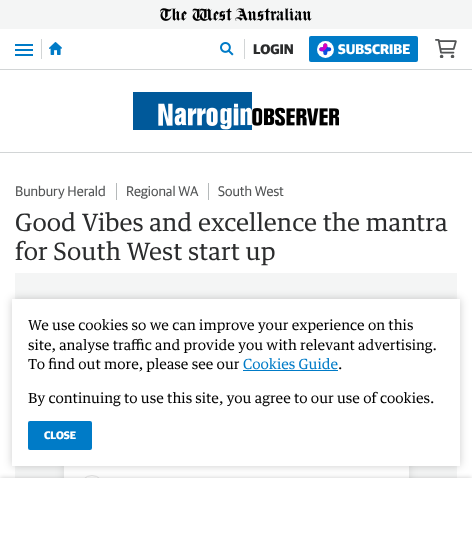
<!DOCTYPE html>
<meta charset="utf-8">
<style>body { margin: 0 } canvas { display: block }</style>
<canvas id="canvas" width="472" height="536"></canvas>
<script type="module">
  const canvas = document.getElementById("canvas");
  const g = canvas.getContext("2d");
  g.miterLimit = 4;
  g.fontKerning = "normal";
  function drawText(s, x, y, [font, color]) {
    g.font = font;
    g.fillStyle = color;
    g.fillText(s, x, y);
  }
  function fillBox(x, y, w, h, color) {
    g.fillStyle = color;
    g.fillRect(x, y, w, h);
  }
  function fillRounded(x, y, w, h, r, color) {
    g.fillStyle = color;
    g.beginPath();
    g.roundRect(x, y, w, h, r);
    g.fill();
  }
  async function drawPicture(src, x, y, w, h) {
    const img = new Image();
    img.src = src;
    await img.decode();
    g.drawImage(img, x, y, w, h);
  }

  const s1 = ["bold 14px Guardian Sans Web", "#2B2C2D"];
  const s2 = ["bold 14px Guardian Sans Web", "#FFFFFF"];
  const s3 = ["14px Guardian Sans Web", "#535556"];
  const s4 = ["24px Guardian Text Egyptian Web", "#2B2C2D"];
  const s5 = ["14px Guardian Text Egyptian Web", "#000000"];
  const s6 = ["14px Guardian Text Egyptian Web", "#007BC7"];
  const s7 = ["bold 11px Guardian Sans Web", "#FFFFFF"];

  fillBox(0, 0, 472, 536, "#FFFFFF");
  fillBox(0, 0, 472, 29, "#F4F5F5");
  await drawPicture("pic1.png", 160, 8, 152, 13);
  fillBox(0, 69, 472, 1, "#D2D5D6");
  fillBox(15, 49, 18, 2, "#007BC7");
  fillBox(15, 44, 18, 2, "#007BC7");
  fillBox(15, 54, 18, 2, "#007BC7");
  fillBox(41, 39, 1, 20, "#D2D5D6");
  await drawPicture("pic2.png", 49, 42, 13, 13);
  await drawPicture("pic3.png", 220, 42, 14, 14);
  fillBox(244, 39, 1, 20, "#D2D5D6");
  drawText("LOGIN", 253, 54, s1);
  fillRounded(309, 36, 109, 26, 2, "#007BC7");
  g.fillStyle = "#FFFFFF";
  g.beginPath();
  g.arc(325.5, 49.5, 8.5, 0, Math.PI * 2);
  g.fill();
  await drawPicture("pic4.png", 319, 43, 13, 13);
  drawText("SUBSCRIBE", 338, 54, s2);
  await drawPicture("pic5.png", 435, 39, 22, 19);
  fillBox(0, 152, 472, 1, "#D2D5D6");
  await drawPicture("pic6.png", 133, 92, 206, 38);
  drawText("Bunbury Herald", 15, 196, s3);
  fillBox(116, 183, 1, 17, "#B5B9BA");
  drawText("Regional WA", 126, 196, s3);
  fillBox(208, 183, 1, 17, "#B5B9BA");
  drawText("South West", 218, 196, s3);
  drawText("Good Vibes and excellence the mantra", 15, 231, s4);
  drawText("for South West start up", 15, 260, s4);
  fillBox(15, 273, 442, 205, "#F4F5F5");
  g.fillStyle = "rgba(0, 0, 0, 0.1)";
  g.filter = "blur(5px)";
  g.beginPath();
  g.roundRect(64, 373, 345, 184, 6);
  g.fill();
  g.filter = "none";
  fillBox(64, 466, 345, 12, "#FFFFFF");
  g.beginPath();
  g.arc(92, 487, 11.5, 0, Math.PI * 2);
  g.strokeStyle = "#E5E5E5";
  g.stroke();
  g.fillStyle = "rgba(0, 0, 0, 0.2)";
  g.filter = "blur(2.5px)";
  g.beginPath();
  g.rect(0, 478, 472, 58);
  g.fill();
  g.filter = "none";
  fillBox(0, 478, 472, 58, "#FFFFFF");
  g.fillStyle = "rgba(0, 0, 0, 0.2)";
  g.filter = "blur(4px)";
  g.beginPath();
  g.rect(12, 299, 448, 167);
  g.fill();
  g.filter = "none";
  fillBox(12, 299, 448, 167, "#FFFFFF");
  drawText("We use cookies so we can improve your experience on this", 28, 330, s5);
  drawText("site, analyse traffic and provide you with relevant advertising.", 28, 350, s5);
  drawText("To find out more, please see our", 28, 369, s5);
  drawText("Cookies Guide", 243, 369, s6);
  fillBox(243, 370, 95, 1, "#007BC7");
  drawText(".", 338, 369, s5);
  drawText("By continuing to use this site, you agree to our use of cookies.", 28, 403, s5);
  fillRounded(28, 421, 64, 29, 2, "#007BC7");
  drawText("CLOSE", 44, 439, s7);
</script>
